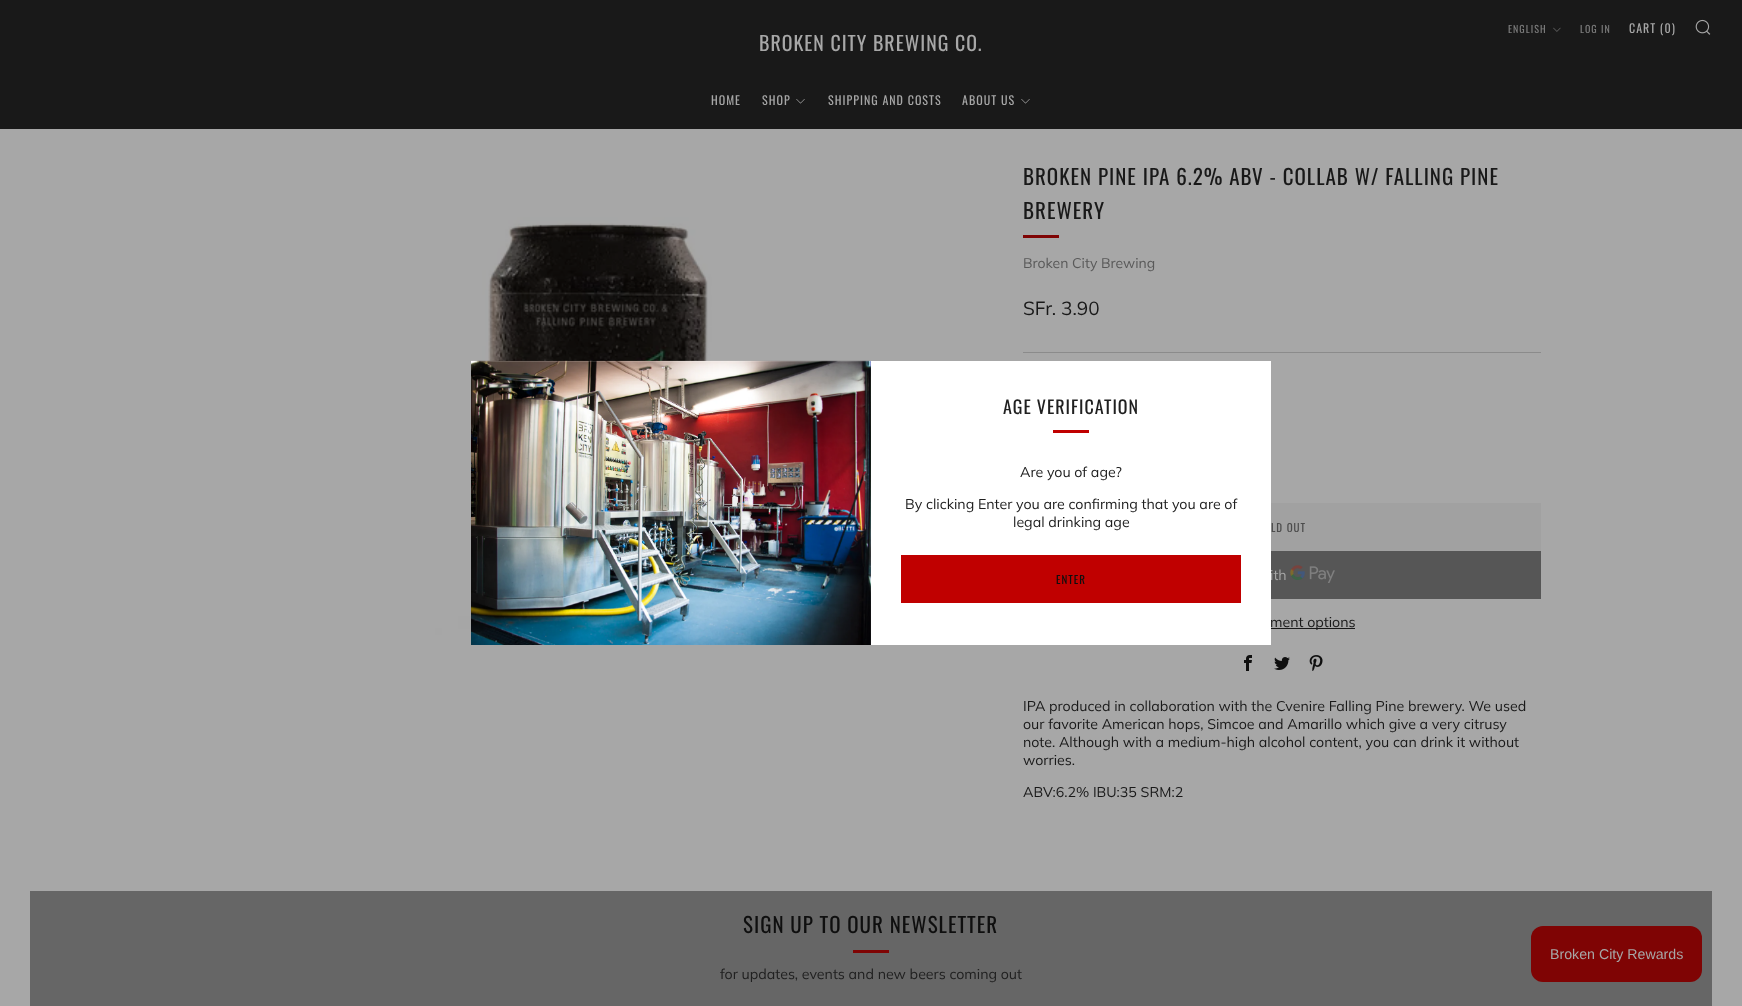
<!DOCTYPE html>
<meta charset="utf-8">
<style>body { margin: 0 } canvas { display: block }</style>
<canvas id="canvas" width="1742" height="1006"></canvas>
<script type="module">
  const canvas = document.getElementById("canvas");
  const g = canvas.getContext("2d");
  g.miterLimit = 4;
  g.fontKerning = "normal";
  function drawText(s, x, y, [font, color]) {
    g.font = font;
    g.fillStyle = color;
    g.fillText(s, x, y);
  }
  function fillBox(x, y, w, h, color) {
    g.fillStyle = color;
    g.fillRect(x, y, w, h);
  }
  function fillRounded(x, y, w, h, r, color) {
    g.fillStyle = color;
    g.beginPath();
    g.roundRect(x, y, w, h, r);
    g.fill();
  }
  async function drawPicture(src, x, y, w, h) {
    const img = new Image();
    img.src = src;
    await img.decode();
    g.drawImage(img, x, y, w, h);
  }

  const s1 = ["10px Oswald", "#7C7C7C"];
  const s2 = ["12px Oswald", "#A7A7A7"];
  const s3 = ["19.9px Oswald", "#A7A7A7"];
  const s4 = ["21px Oswald", "#191919"];
  const s5 = ["14px Muli", "#595959"];
  const s6 = ["19px Muli", "#191919"];
  const s7 = ["11px Oswald", "#4C4C4C"];
  const s8 = ["14.2px Muli", "#A7A7A7"];
  const s9 = ["14.2px Muli", "#191919"];
  const s10 = ["21px Oswald", "#0F0F0F"];
  const s11 = ["14.2px Muli", "#202020"];
  const s12 = ["18px Oswald", "#202020"];
  const s13 = ["11px Oswald", "#0F0F0F"];
  const s14 = ["14.2px Liberation Sans", "#A7A7A7"];

  fillBox(0, 0, 1742, 1006, "#A7A7A7");
  fillBox(0, 0, 1742, 129, "#191919");
  g.letterSpacing = "1px";
  drawText("ENGLISH", 1508, 33, s1);
  await drawPicture("pic1.png", 1553, 27, 8, 5);
  drawText("LOG IN", 1580, 33, s1);
  drawText("CART (0)", 1629, 33, s2);
  await drawPicture("pic2.png", 1695, 19, 16, 16);
  drawText("HOME", 711, 105, s2);
  drawText("SHOP", 762, 105, s2);
  await drawPicture("pic3.png", 796, 99, 9, 5);
  drawText("SHIPPING AND COSTS", 828, 105, s2);
  drawText("ABOUT US", 962, 105, s2);
  await drawPicture("pic3.png", 1021, 99, 9, 5);
  drawText("BROKEN CITY BREWING CO.", 759, 51, s3);
  await drawPicture("pic4.png", 201, 159, 792, 527);
  drawText("BROKEN PINE IPA 6.2% ABV - COLLAB W/ FALLING PINE", 1023, 185, s4);
  drawText("BREWERY", 1023, 219, s4);
  fillBox(1023, 235, 36, 3, "#7F0404");
  g.letterSpacing = "0px";
  drawText("Broken City Brewing", 1023, 268, s5);
  drawText("SFr. 3.90", 1023, 315, s6);
  fillBox(1023, 352, 518, 1, "#8B8B8B");
  fillBox(1271, 503, 270, 48, "#A1A1A1");
  g.letterSpacing = "1px";
  drawText("LD OUT", 1271, 532, s7);
  fillBox(1271, 551, 270, 48, "#565656");
  g.letterSpacing = "0px";
  drawText("ith", 1270, 580, s8);
  await drawPicture("pic5.png", 1290, 565, 45, 18);
  fillBox(1271, 628, 84, 1, "#191919");
  drawText("ment options", 1270, 627, s9);
  await drawPicture("pic6.png", 1244, 655, 8, 16);
  await drawPicture("pic7.png", 1274, 657, 16, 13);
  await drawPicture("pic8.png", 1309, 655, 14, 16);
  drawText("IPA produced in collaboration with the Cvenire Falling Pine brewery. We used", 1023, 711, s9);
  drawText("our favorite American hops, Simcoe and Amarillo which give a very citrusy", 1023, 729, s9);
  drawText("note. Although with a medium-high alcohol content, you can drink it without", 1023, 747, s9);
  drawText("worries.", 1023, 765, s9);
  drawText("ABV:6.2% IBU:35 SRM:2", 1023, 797, s9);
  fillBox(30, 891, 1682, 115, "#666666");
  g.letterSpacing = "1px";
  drawText("SIGN UP TO OUR NEWSLETTER", 743, 933, s10);
  fillBox(853, 950, 36, 3, "#7F0404");
  g.letterSpacing = "0px";
  drawText("for updates, events and new beers coming out", 720, 979, s11);
  fillBox(471, 361, 800, 284, "#FFFFFF");
  await drawPicture("pic9.png", 471, 360, 400, 285);
  g.letterSpacing = "1px";
  drawText("AGE VERIFICATION", 1003, 414, s12);
  fillBox(1053, 430, 36, 3, "#C00000");
  g.letterSpacing = "0px";
  drawText("Are you of age?", 1020, 477, s11);
  drawText("By clicking Enter you are confirming that you are of", 905, 509, s11);
  drawText("legal drinking age", 1013, 527, s11);
  fillBox(901, 555, 340, 48, "#C00000");
  g.letterSpacing = "1px";
  drawText("ENTER", 1056, 584, s13);
  fillRounded(1531, 926, 171, 56, 12, "#7F0404");
  g.letterSpacing = "0px";
  drawText("Broken City Rewards", 1550, 959, s14);
</script>
